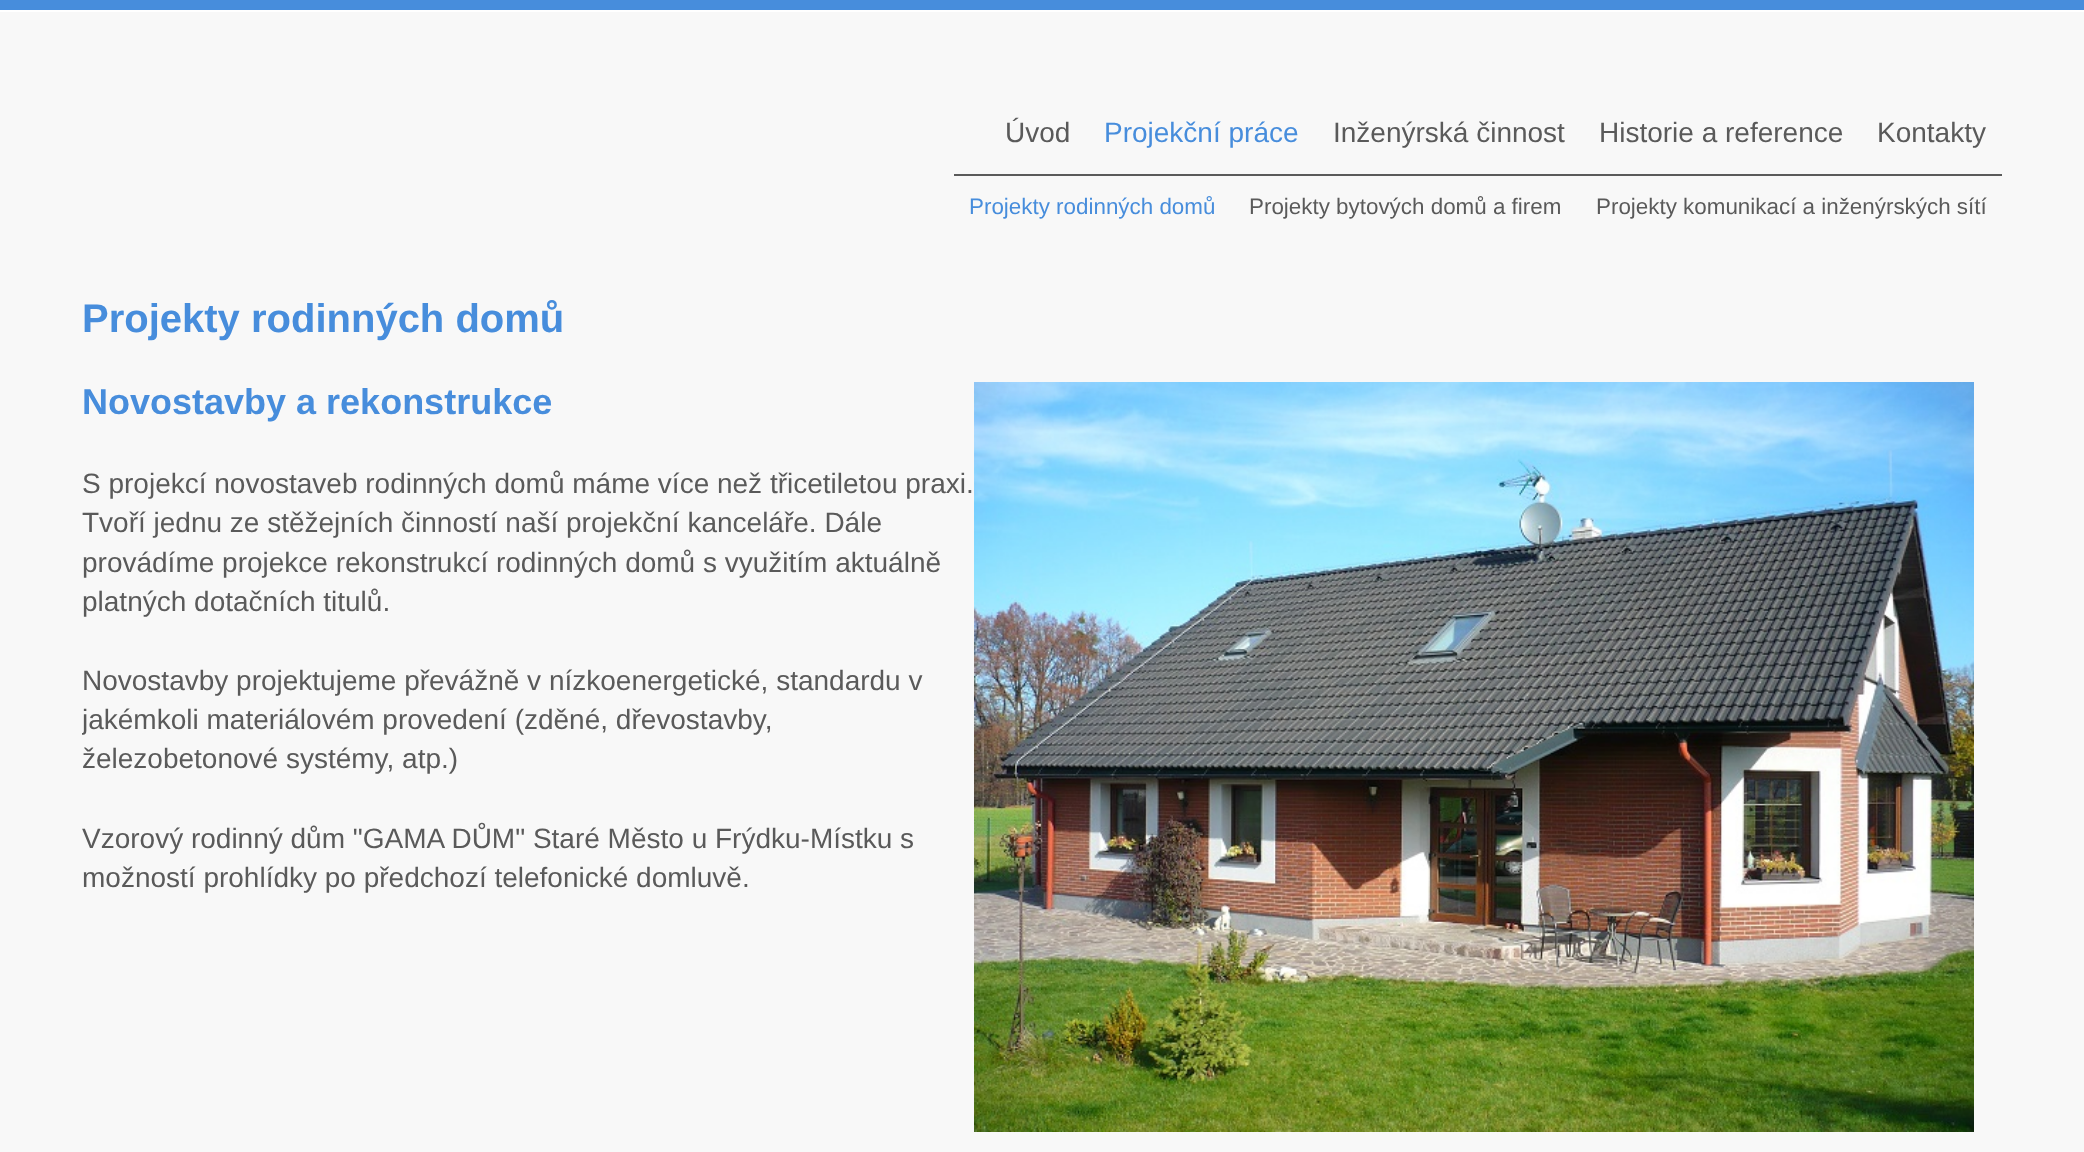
<!DOCTYPE html>
<meta charset="utf-8">
<style>body { margin: 0 } canvas { display: block }</style>
<canvas id="canvas" width="2084" height="1152"></canvas>
<script type="module">
  const canvas = document.getElementById("canvas");
  const g = canvas.getContext("2d");
  g.miterLimit = 4;
  g.fontKerning = "normal";
  function drawText(s, x, y, [font, color]) {
    g.font = font;
    g.fillStyle = color;
    g.fillText(s, x, y);
  }
  function fillBox(x, y, w, h, color) {
    g.fillStyle = color;
    g.fillRect(x, y, w, h);
  }
  async function drawPicture(src, x, y, w, h) {
    const img = new Image();
    img.src = src;
    await img.decode();
    g.drawImage(img, x, y, w, h);
  }

  const s1 = ["28px Liberation Sans", "#5A5A5A"];
  const s2 = ["28px Liberation Sans", "#478DDC"];
  const s3 = ["22.4px Liberation Sans", "#478DDC"];
  const s4 = ["22.4px Liberation Sans", "#5A5A5A"];
  const s5 = ["bold 40px Liberation Sans", "#478DDC"];
  const s6 = ["bold 36px Liberation Sans", "#478DDC"];

  fillBox(0, 0, 2084, 1152, "#F8F8F8");
  fillBox(0, 0, 2084, 10, "#478DDC");
  fillBox(0, 10, 2084, 2, "#FFFFFF");
  drawText("Úvod", 1005, 142, s1);
  drawText("Projekční práce", 1104, 142, s2);
  drawText("Inženýrská činnost", 1333, 142, s1);
  drawText("Historie a reference", 1599, 142, s1);
  drawText("Kontakty", 1877, 142, s1);
  fillBox(954, 174, 1048, 2, "#5A5A5A");
  drawText("Projekty rodinných domů", 969, 214, s3);
  drawText("Projekty bytových domů a firem", 1249, 214, s4);
  drawText("Projekty komunikací a inženýrských sítí", 1596, 214, s4);
  drawText("Projekty rodinných domů", 82, 332, s5);
  drawText("Novostavby a rekonstrukce", 82, 414, s6);
  await drawPicture("pic1.png", 974, 382, 1000, 750);
  drawText("S projekcí novostaveb rodinných domů máme více než třicetiletou praxi.", 82, 493, s1);
  drawText("Tvoří jednu ze stěžejních činností naší projekční kanceláře. Dále", 82, 532, s1);
  drawText("provádíme projekce rekonstrukcí rodinných domů s využitím aktuálně", 82, 572, s1);
  drawText("platných dotačních titulů.", 82, 611, s1);
  drawText("Novostavby projektujeme převážně v nízkoenergetické, standardu v", 82, 690, s1);
  g.save();
  g.beginPath();
  g.rect(82, 254, 1920, 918);
  g.clip();
  drawText("jakémkoli materiálovém provedení (zděné, dřevostavby,", 82, 729, s1);
  g.restore();
  drawText("železobetonové systémy, atp.)", 82, 768, s1);
  drawText("Vzorový rodinný dům \"GAMA DŮM\" Staré Město u Frýdku-Místku s", 82, 848, s1);
  drawText("možností prohlídky po předchozí telefonické domluvě.", 82, 887, s1);
</script>
